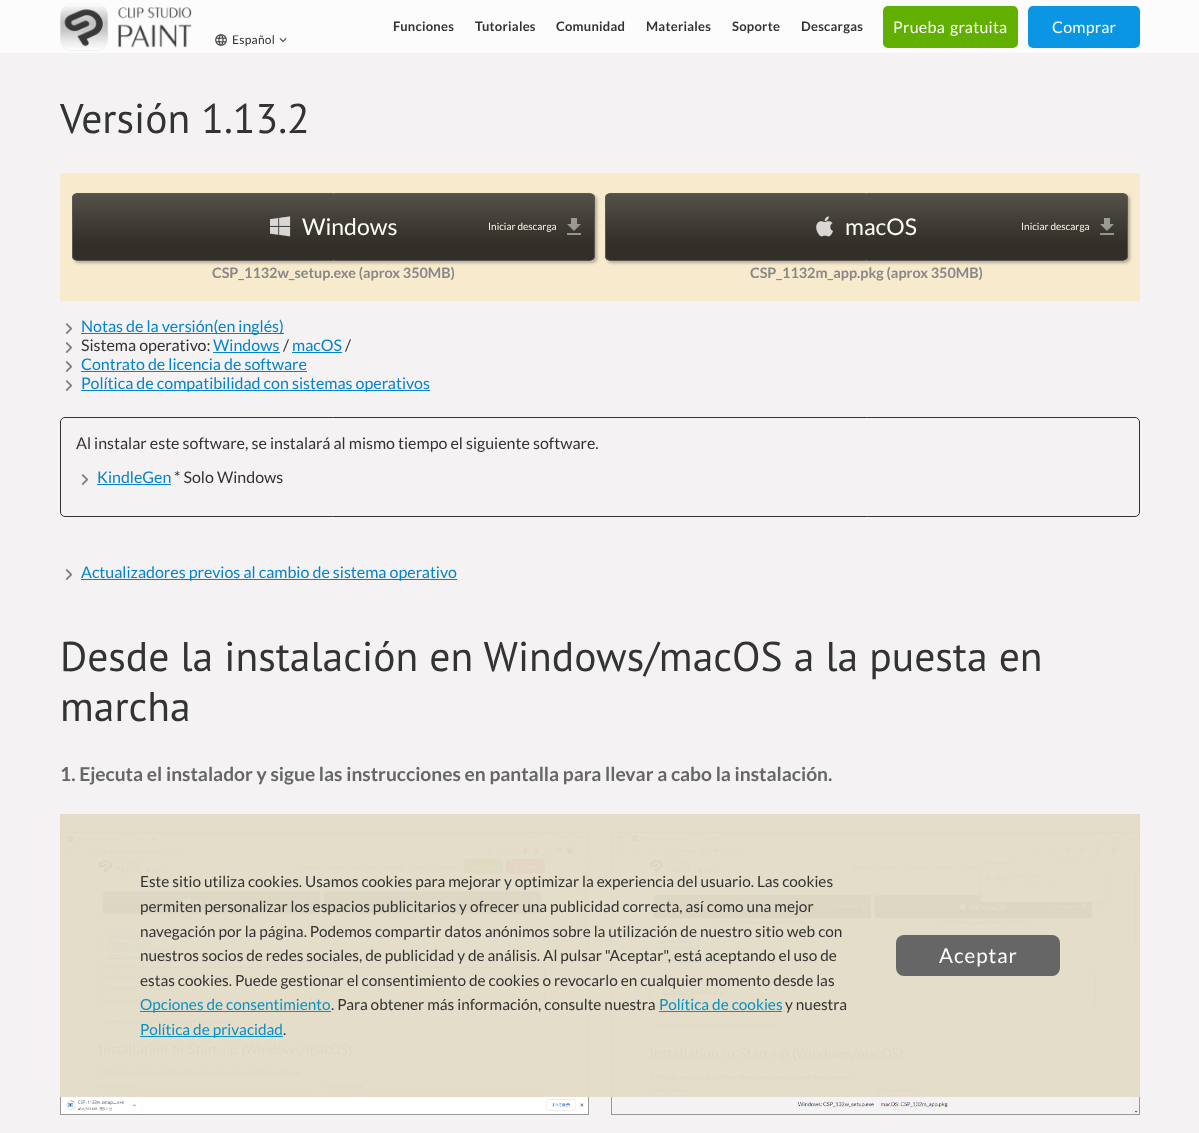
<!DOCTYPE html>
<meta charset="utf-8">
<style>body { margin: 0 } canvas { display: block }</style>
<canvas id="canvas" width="1199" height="1133"></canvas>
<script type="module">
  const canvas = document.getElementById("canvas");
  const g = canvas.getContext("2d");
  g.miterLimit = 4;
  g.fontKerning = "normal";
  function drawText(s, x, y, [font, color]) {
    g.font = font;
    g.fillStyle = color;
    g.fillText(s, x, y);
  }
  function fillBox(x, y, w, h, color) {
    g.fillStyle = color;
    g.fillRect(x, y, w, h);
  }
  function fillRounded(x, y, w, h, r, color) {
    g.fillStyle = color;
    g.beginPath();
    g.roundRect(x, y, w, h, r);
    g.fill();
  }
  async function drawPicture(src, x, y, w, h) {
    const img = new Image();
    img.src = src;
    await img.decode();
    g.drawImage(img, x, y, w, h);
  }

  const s1 = ["bold 13px Lato", "#333333"];
  const s2 = ["16px Lato", "#FFFFFF"];
  const s3 = ["12px Lato", "#333333"];
  const s4 = ["41.6px PT Sans", "#333333"];
  const s5 = ["23px Lato", "#FDFBF5"];
  const s6 = ["10px Lato", "#FBF4E5"];
  const s7 = ["bold 14.4px Lato", "#888888"];
  const s8 = ["16px Lato", "#0584CB"];
  const s9 = ["16px Lato", "#333333"];
  const s10 = ["bold 19.2px Lato", "#666666"];
  const s11 = ["15.35px Lato", "#333333"];
  const s12 = ["15.35px Lato", "#0892C5"];
  const s13 = ["20.5px Lato", "#FFFFFF"];

  fillBox(0, 0, 1199, 1133, "#F4F2F3");
  fillBox(0, 0, 1199, 53, "#FDFCFD");
  g.letterSpacing = "0.25px";
  drawText("Funciones", 393, 31, s1);
  drawText("Tutoriales", 475, 31, s1);
  drawText("Comunidad", 556, 31, s1);
  drawText("Materiales", 646, 31, s1);
  drawText("Soporte", 732, 31, s1);
  drawText("Descargas", 801, 31, s1);
  fillRounded(883, 6, 135, 42, 5, "#61B001");
  drawText("Prueba", 893, 33, s2);
  drawText("gratuita", 950, 33, s2);
  fillRounded(1028, 6, 112, 42, 5, "#0B96E3");
  drawText("Comprar", 1052, 33, s2);
  await drawPicture("pic1.png", 60, 3, 132, 48);
  await drawPicture("pic2.png", 215, 34, 12, 12);
  drawText("Español", 232, 44, s3);
  await drawPicture("pic3.png", 279, 38, 8, 5);
  g.letterSpacing = "0px";
  drawText("Versión 1.13.2", 60, 133, s4);
  fillRounded(60, 173, 1080, 128, 3, "#F7EACD");
  g.save();
  g.beginPath();
  g.moveTo(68, 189);
  g.lineTo(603, 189);
  g.lineTo(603, 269);
  g.lineTo(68, 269);
  g.closePath();
  g.moveTo(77, 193);
  g.lineTo(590, 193);
  g.bezierCurveTo(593, 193, 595, 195, 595, 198);
  g.lineTo(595, 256);
  g.bezierCurveTo(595, 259, 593, 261, 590, 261);
  g.lineTo(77, 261);
  g.bezierCurveTo(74, 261, 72, 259, 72, 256);
  g.lineTo(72, 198);
  g.bezierCurveTo(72, 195, 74, 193, 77, 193);
  g.closePath();
  g.clip("evenodd");
  g.fillStyle = "rgba(49, 47, 41, 0.33)";
  g.filter = "blur(1.5px)";
  g.beginPath();
  g.roundRect(74, 195, 523, 68, 5);
  g.fill();
  g.filter = "none";
  g.restore();
  await drawPicture("pic4.png", 72, 194, 523, 66);
  g.beginPath();
  g.roundRect(72.5, 193.5, 522, 67, 4.5);
  g.strokeStyle = "#5A5852";
  g.stroke();
  await drawPicture("pic5.png", 270, 216, 21, 21);
  drawText("Windows", 302, 235, s5);
  drawText("Iniciar descarga", 488, 230, s6);
  await drawPicture("pic6.png", 567, 218, 14, 17);
  drawText("CSP_1132w_setup.exe (aprox 350MB)", 212, 278, s7);
  g.save();
  g.beginPath();
  g.moveTo(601, 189);
  g.lineTo(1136, 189);
  g.lineTo(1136, 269);
  g.lineTo(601, 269);
  g.closePath();
  g.moveTo(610, 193);
  g.lineTo(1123, 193);
  g.bezierCurveTo(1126, 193, 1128, 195, 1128, 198);
  g.lineTo(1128, 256);
  g.bezierCurveTo(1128, 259, 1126, 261, 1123, 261);
  g.lineTo(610, 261);
  g.bezierCurveTo(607, 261, 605, 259, 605, 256);
  g.lineTo(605, 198);
  g.bezierCurveTo(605, 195, 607, 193, 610, 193);
  g.closePath();
  g.clip("evenodd");
  g.fillStyle = "rgba(49, 47, 41, 0.33)";
  g.filter = "blur(1.5px)";
  g.beginPath();
  g.roundRect(607, 195, 523, 68, 5);
  g.fill();
  g.filter = "none";
  g.restore();
  await drawPicture("pic4.png", 605, 194, 523, 66);
  g.beginPath();
  g.roundRect(605.5, 193.5, 522, 67, 4.5);
  g.stroke();
  await drawPicture("pic7.png", 816, 216, 17, 21);
  drawText("macOS", 845, 235, s5);
  drawText("Iniciar descarga", 1021, 230, s6);
  await drawPicture("pic6.png", 1100, 218, 14, 17);
  drawText("CSP_1132m_app.pkg (aprox 350MB)", 750, 278, s7);
  await drawPicture("pic8.png", 65, 323, 7, 11);
  fillBox(81, 333, 203, 1, "#0584CB");
  drawText("Notas de la versión(en inglés)", 81, 332, s8);
  await drawPicture("pic8.png", 65, 342, 7, 11);
  drawText("Sistema operativo:", 81, 351, s9);
  drawText("Windows", 213, 351, s8);
  fillBox(213, 352, 67, 1, "#0584CB");
  drawText("/", 283, 351, s9);
  drawText("macOS", 292, 351, s8);
  fillBox(292, 352, 50, 1, "#0584CB");
  drawText("/", 345, 351, s9);
  await drawPicture("pic8.png", 65, 361, 7, 11);
  drawText("Contrato de licencia de software", 81, 370, s8);
  fillBox(81, 371, 226, 1, "#0584CB");
  await drawPicture("pic8.png", 65, 380, 7, 11);
  fillBox(81, 390, 349, 1, "#0584CB");
  drawText("Política de compatibilidad con sistemas operativos", 81, 389, s8);
  g.beginPath();
  g.roundRect(60.5, 417.5, 1079, 99, 4.5);
  g.strokeStyle = "#333333";
  g.stroke();
  drawText("Al instalar este software, se instalará al mismo tiempo el siguiente software.", 76, 449, s9);
  await drawPicture("pic8.png", 81, 474, 7, 11);
  drawText("KindleGen", 97, 483, s8);
  fillBox(97, 484, 74, 1, "#0584CB");
  drawText("* Solo Windows", 174, 483, s9);
  await drawPicture("pic8.png", 65, 569, 7, 11);
  fillBox(81, 579, 376, 1, "#0584CB");
  drawText("Actualizadores previos al cambio de sistema operativo", 81, 578, s8);
  drawText("Desde la instalación en Windows/macOS a la puesta en", 60, 671, s4);
  drawText("marcha", 60, 721, s4);
  drawText("1. Ejecuta el instalador y sigue las instrucciones en pantalla para llevar a cabo la instalación.", 60, 781, s10);
  g.strokeStyle = "#999999";
  g.strokeRect(60.5, 832.5, 528, 282);
  await drawPicture("pic9.png", 61, 833, 527, 281);
  g.strokeRect(611.5, 832.5, 528, 282);
  await drawPicture("pic10.png", 612, 833, 527, 280);
  fillBox(60, 814, 1080, 283, "rgba(227, 220, 200, 0.97)");
  drawText("Este sitio utiliza cookies. Usamos cookies para mejorar y optimizar la experiencia del usuario. Las cookies", 140, 887, s11);
  drawText("permiten personalizar los espacios publicitarios y ofrecer una publicidad correcta, así como una mejor", 140, 912, s11);
  drawText("navegación por la página. Podemos compartir datos anónimos sobre la utilización de nuestro sitio web con", 140, 937, s11);
  drawText("nuestros socios de redes sociales, de publicidad y de análisis. Al pulsar \"Aceptar\", está aceptando el uso de", 140, 961, s11);
  drawText("estas cookies. Puede gestionar el consentimiento de cookies o revocarlo en cualquier momento desde las", 140, 986, s11);
  fillBox(140, 1011, 191, 1, "#0892C5");
  drawText("Opciones de consentimiento", 140, 1010, s12);
  drawText(". Para obtener más información, consulte nuestra", 331, 1010, s11);
  drawText("Política de cookies", 659, 1010, s12);
  fillBox(659, 1011, 123, 1, "#0892C5");
  drawText("y nuestra", 785, 1010, s11);
  fillBox(140, 1036, 143, 1, "#0892C5");
  drawText("Política de privacidad", 140, 1035, s12);
  drawText(".", 283, 1035, s11);
  fillRounded(896, 935, 164, 41, 8, "#666666");
  g.letterSpacing = "1px";
  drawText("Aceptar", 939, 963, s13);
</script>
